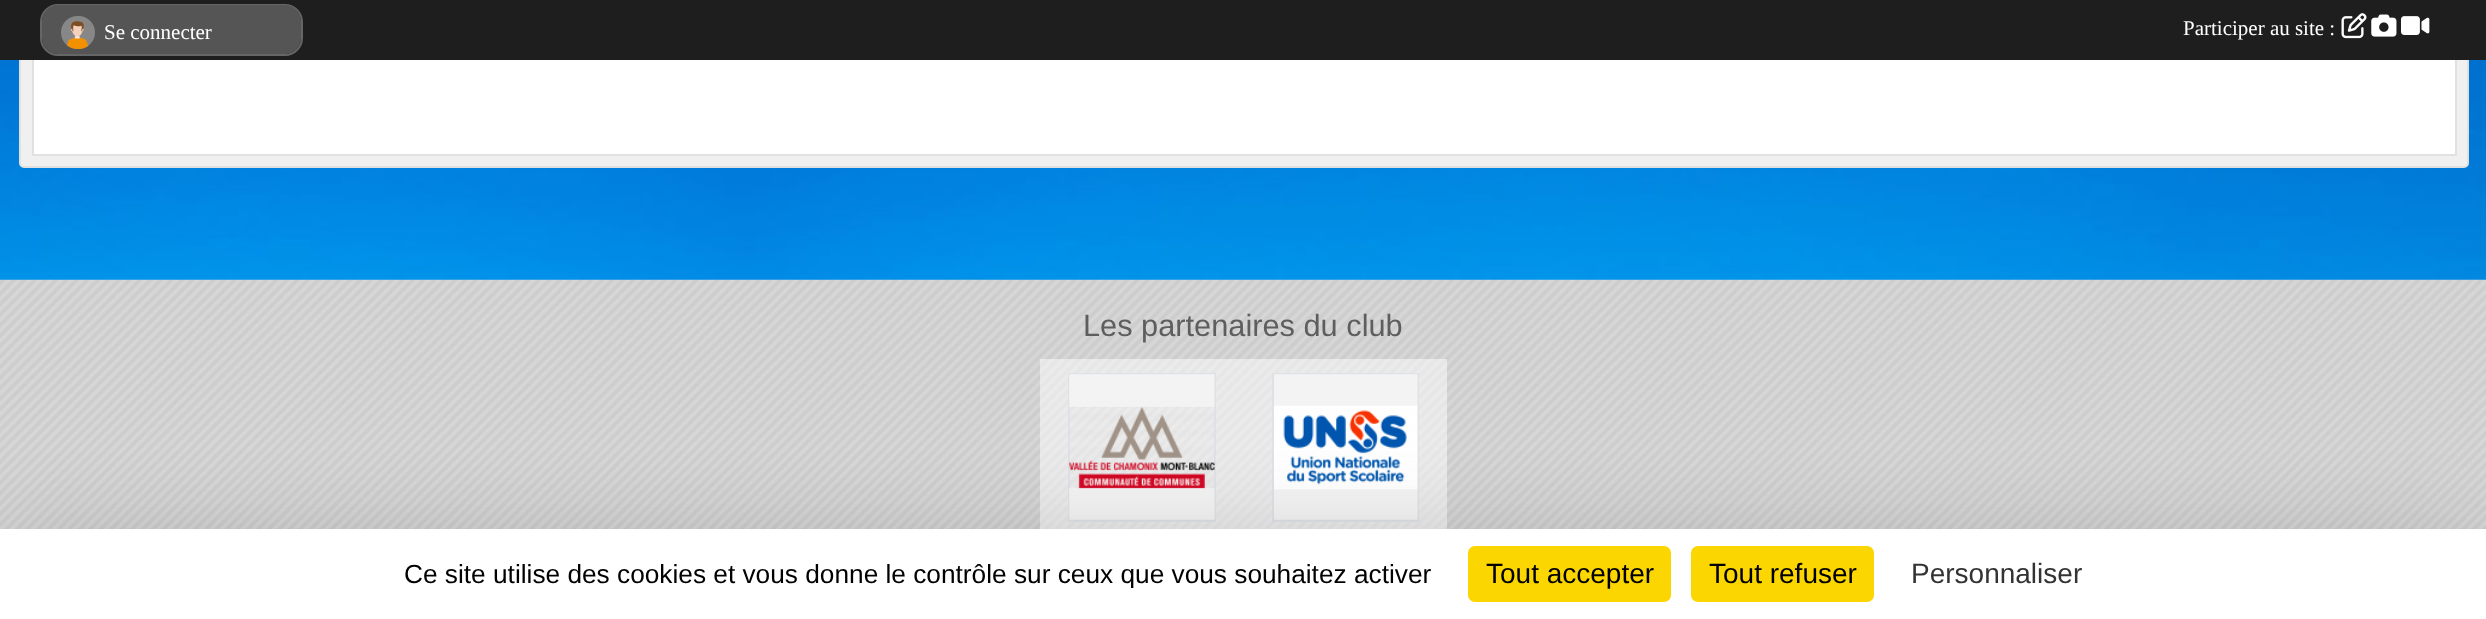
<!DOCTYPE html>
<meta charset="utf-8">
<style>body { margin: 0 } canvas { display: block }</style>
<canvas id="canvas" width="2486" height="619"></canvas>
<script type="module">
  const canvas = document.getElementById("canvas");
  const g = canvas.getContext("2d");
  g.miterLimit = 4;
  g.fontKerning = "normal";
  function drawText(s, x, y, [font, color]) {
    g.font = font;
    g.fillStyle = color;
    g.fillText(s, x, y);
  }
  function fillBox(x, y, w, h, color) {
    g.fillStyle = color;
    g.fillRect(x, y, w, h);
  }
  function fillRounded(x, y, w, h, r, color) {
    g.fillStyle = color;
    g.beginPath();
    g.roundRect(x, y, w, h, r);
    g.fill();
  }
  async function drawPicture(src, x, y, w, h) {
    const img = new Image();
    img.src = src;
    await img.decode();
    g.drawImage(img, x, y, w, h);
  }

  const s1 = ["21px Liberation Serif", "#FFFFFF"];
  const s2 = ["30.75px Liberation Sans", "#5E5E5E"];
  const s3 = ["26.25px Liberation Sans", "#000000"];
  const s4 = ["28px Liberation Sans", "#000000"];
  const s5 = ["28px Liberation Sans", "#333333"];

  fillBox(0, 0, 2486, 619, "#FFFFFF");
  await drawPicture("pic1.png", 0, 60, 2486, 220);
  g.fillStyle = "#F0F0F0";
  g.beginPath();
  g.roundRect(20, -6, 2448, 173, 4);
  g.fill();
  g.strokeStyle = "#E1E1E1";
  g.lineWidth = 2;
  g.stroke();
  fillBox(34, 60, 2421, 94, "#FFFFFF");
  g.strokeRect(33, -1, 2423, 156);
  fillBox(0, 0, 2486, 60, "#1E1E1E");
  g.beginPath();
  g.roundRect(41, 5, 261, 50, 17);
  g.strokeStyle = "#666666";
  g.stroke();
  fillRounded(42, 5, 259, 49, 16, "#555555");
  await drawPicture("pic2.png", 61, 16, 34, 33);
  drawText("Se connecter", 104, 39, s1);
  drawText("Participer au site :", 2183, 35, s1);
  await drawPicture("pic3.png", 2341, 13, 26, 26);
  await drawPicture("pic4.png", 2371, 14, 26, 23);
  await drawPicture("pic5.png", 2401, 16, 29, 19);
  await drawPicture("pic6.png", 0, 279, 2486, 250);
  drawText("Les partenaires du club", 1083, 336, s2);
  fillBox(1040, 359, 204, 170, "rgba(255, 255, 255, 0.5)");
  g.strokeStyle = "#DEE2E6";
  g.strokeRect(1069, 374, 146, 147);
  await drawPicture("pic7.png", 1069, 374, 146, 146);
  fillBox(1244, 359, 203, 170, "rgba(255, 255, 255, 0.5)");
  g.strokeRect(1273, 374, 145, 147);
  await drawPicture("pic8.png", 1274, 374, 144, 146);
  g.fillStyle = "rgba(0, 0, 0, 0.25)";
  g.filter = "blur(52.5px)";
  g.beginPath();
  g.rect(0, 564, 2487, 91);
  g.fill();
  g.filter = "none";
  fillBox(0, 529, 2486, 90, "#FFFFFF");
  g.save();
  g.beginPath();
  g.rect(387, 558, 1062, 30);
  g.clip();
  drawText("Ce site utilise des cookies et vous donne le contrôle sur ceux que vous souhaitez activer", 404, 583, s3);
  g.restore();
  fillRounded(1468, 546, 203, 56, 7, "#FBD600");
  drawText("Tout accepter", 1486, 583, s4);
  fillRounded(1691, 546, 183, 56, 7, "#FBD600");
  drawText("Tout refuser", 1709, 583, s4);
  drawText("Personnaliser", 1911, 583, s5);
</script>
